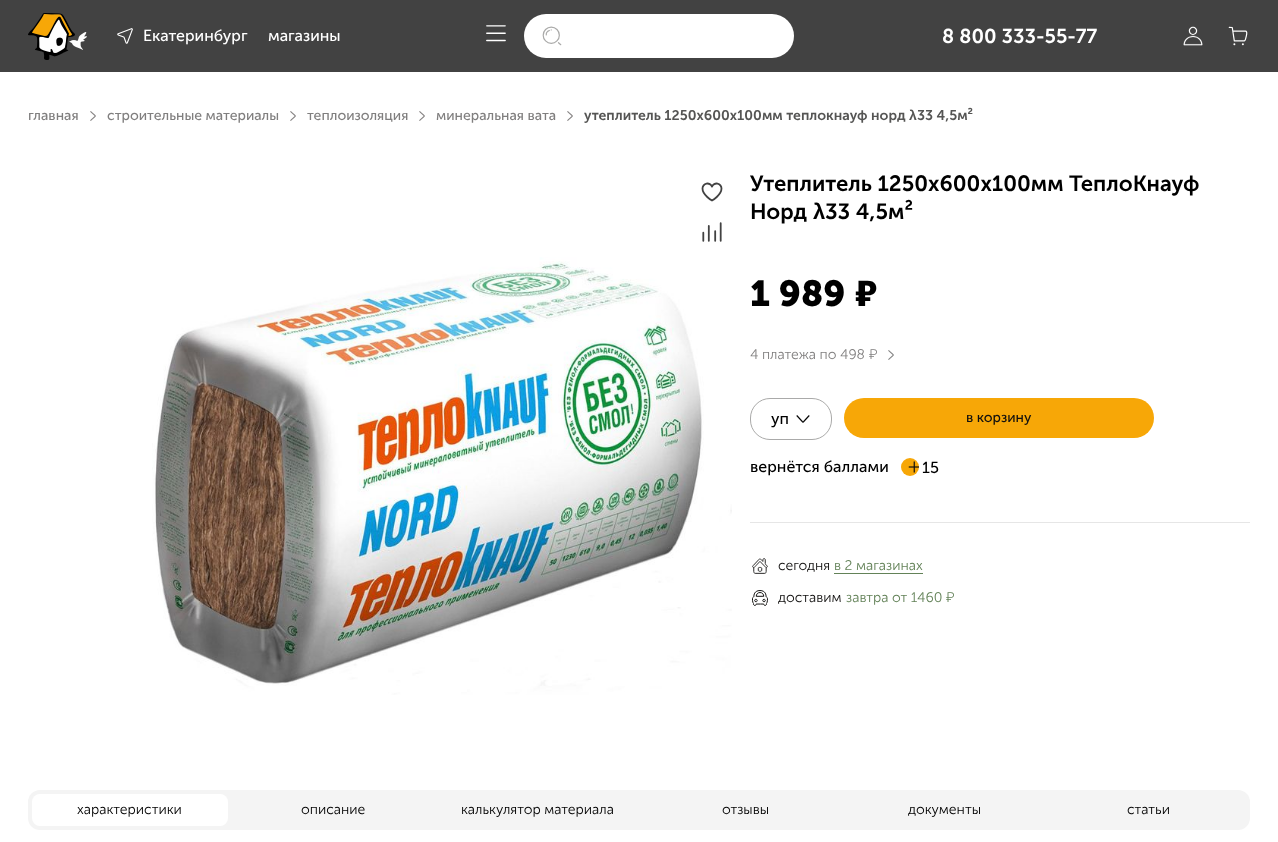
<!DOCTYPE html>
<meta charset="utf-8">
<style>body { margin: 0 } canvas { display: block }</style>
<canvas id="canvas" width="1278" height="842"></canvas>
<script type="module">
  const canvas = document.getElementById("canvas");
  const g = canvas.getContext("2d");
  g.miterLimit = 4;
  g.fontKerning = "normal";
  function drawText(s, x, y, [font, color]) {
    g.font = font;
    g.fillStyle = color;
    g.fillText(s, x, y);
  }
  function fillBox(x, y, w, h, color) {
    g.fillStyle = color;
    g.fillRect(x, y, w, h);
  }
  function fillRounded(x, y, w, h, r, color) {
    g.fillStyle = color;
    g.beginPath();
    g.roundRect(x, y, w, h, r);
    g.fill();
  }
  async function drawPicture(src, x, y, w, h) {
    const img = new Image();
    img.src = src;
    await img.decode();
    g.drawImage(img, x, y, w, h);
  }

  const s1 = ["16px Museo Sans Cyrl", "#FFFFFF"];
  const s2 = ["600 20px Museo Sans Cyrl", "#FFFFFF"];
  const s3 = ["14px Museo Sans Cyrl", "#807F7F"];
  const s4 = ["600 14px Museo Sans Cyrl", "#555554"];
  const s5 = ["bold 14px Liberation Sans", "#555554"];
  const s6 = ["600 22px Museo Sans Cyrl", "#000000"];
  const s7 = ["bold 22px Liberation Sans", "#000000"];
  const s8 = ["bold 36px Museo Sans Cyrl", "#000000"];
  const s9 = ["900 36px Nunito Sans", "#000000"];
  const s10 = ["300 14px Museo Sans Cyrl", "#807F7F"];
  const s11 = ["300 14px Nunito Sans", "#807F7F"];
  const s12 = ["16px Museo Sans Cyrl", "#000000"];
  const s13 = ["14px Museo Sans Cyrl", "#11100F"];
  const s14 = ["300 14px Museo Sans Cyrl", "#11100F"];
  const s15 = ["300 14px Museo Sans Cyrl", "#638258"];
  const s16 = ["300 14px Nunito Sans", "#638258"];
  const s17 = ["300 14px Museo Sans Cyrl", "#000000"];

  fillBox(0, 0, 1278, 842, "#FFFFFF");
  fillBox(0, 0, 1278, 72, "#424242");
  await drawPicture("pic1.png", 28, 13, 59, 47);
  await drawPicture("pic2.png", 117, 28, 16, 16);
  drawText("Екатеринбург", 143, 41, s1);
  drawText("магазины", 268, 41, s1);
  await drawPicture("pic3.png", 486, 25, 20, 17);
  fillRounded(524, 14, 270, 44, 22, "#FFFFFF");
  await drawPicture("pic4.png", 542, 26, 20, 20);
  drawText("8 800 333-55-77", 942, 43, s2);
  await drawPicture("pic5.png", 1183, 26, 20, 20);
  await drawPicture("pic6.png", 1228, 26, 20, 20);
  drawText("главная", 28, 120, s3);
  await drawPicture("pic7.png", 90, 111, 6, 10);
  drawText("строительные материалы", 107, 120, s3);
  await drawPicture("pic7.png", 290, 111, 6, 10);
  drawText("теплоизоляция", 307, 120, s3);
  await drawPicture("pic7.png", 419, 111, 6, 10);
  drawText("минеральная вата", 436, 120, s3);
  await drawPicture("pic7.png", 567, 111, 6, 10);
  drawText("утеплитель 1250х600х100мм теплокнауф норд", 584, 120, s4);
  drawText("λ", 909, 120, s5);
  drawText("33 4,5м²", 917, 120, s4);
  await drawPicture("pic8.png", 701, 182, 22, 20);
  await drawPicture("pic9.png", 702, 222, 20, 20);
  await drawPicture("pic10.png", 152, 257, 580, 438);
  drawText("Утеплитель 1250х600х100мм ТеплоКнауф", 750, 191, s6);
  drawText("Норд", 750, 219, s6);
  drawText("λ", 813, 219, s7);
  drawText("33 4,5м²", 825, 219, s6);
  drawText("1 989", 750, 306, s8);
  drawText("₽", 855, 306, s9);
  drawText("4 платежа по 498", 750, 359, s10);
  drawText("₽", 869, 359, s11);
  await drawPicture("pic11.png", 888, 350, 6, 10);
  g.beginPath();
  g.roundRect(750.5, 398.5, 81, 41, 19.5);
  g.strokeStyle = "#AAAAA9";
  g.stroke();
  drawText("уп", 771, 424, s12);
  await drawPicture("pic12.png", 796, 415, 14, 8);
  fillRounded(844, 398, 310, 40, 20, "#F7A707");
  drawText("в корзину", 966, 422, s13);
  drawText("вернётся баллами", 750, 472, s12);
  await drawPicture("pic13.png", 901, 458, 18, 18);
  drawText("15", 922, 473, s12);
  fillBox(750, 522, 500, 1, "#E6E6E6");
  await drawPicture("pic14.png", 752, 558, 16, 16);
  drawText("сегодня", 778, 570, s14);
  drawText("в 2 магазинах", 834, 570, s15);
  fillBox(834, 573, 89, 1, "#638258");
  await drawPicture("pic15.png", 752, 590, 16, 16);
  drawText("доставим", 778, 602, s14);
  drawText("завтра от 1460", 846, 602, s15);
  drawText("₽", 946, 602, s16);
  fillRounded(28, 790, 1222, 40, 12, "#F4F4F4");
  fillRounded(32, 794, 196, 32, 8, "#FFFFFF");
  drawText("характеристики", 77, 814, s17);
  drawText("описание", 301, 814, s17);
  drawText("калькулятор материала", 461, 814, s17);
  drawText("отзывы", 722, 814, s17);
  drawText("документы", 908, 814, s17);
  drawText("статьи", 1127, 814, s17);
</script>
